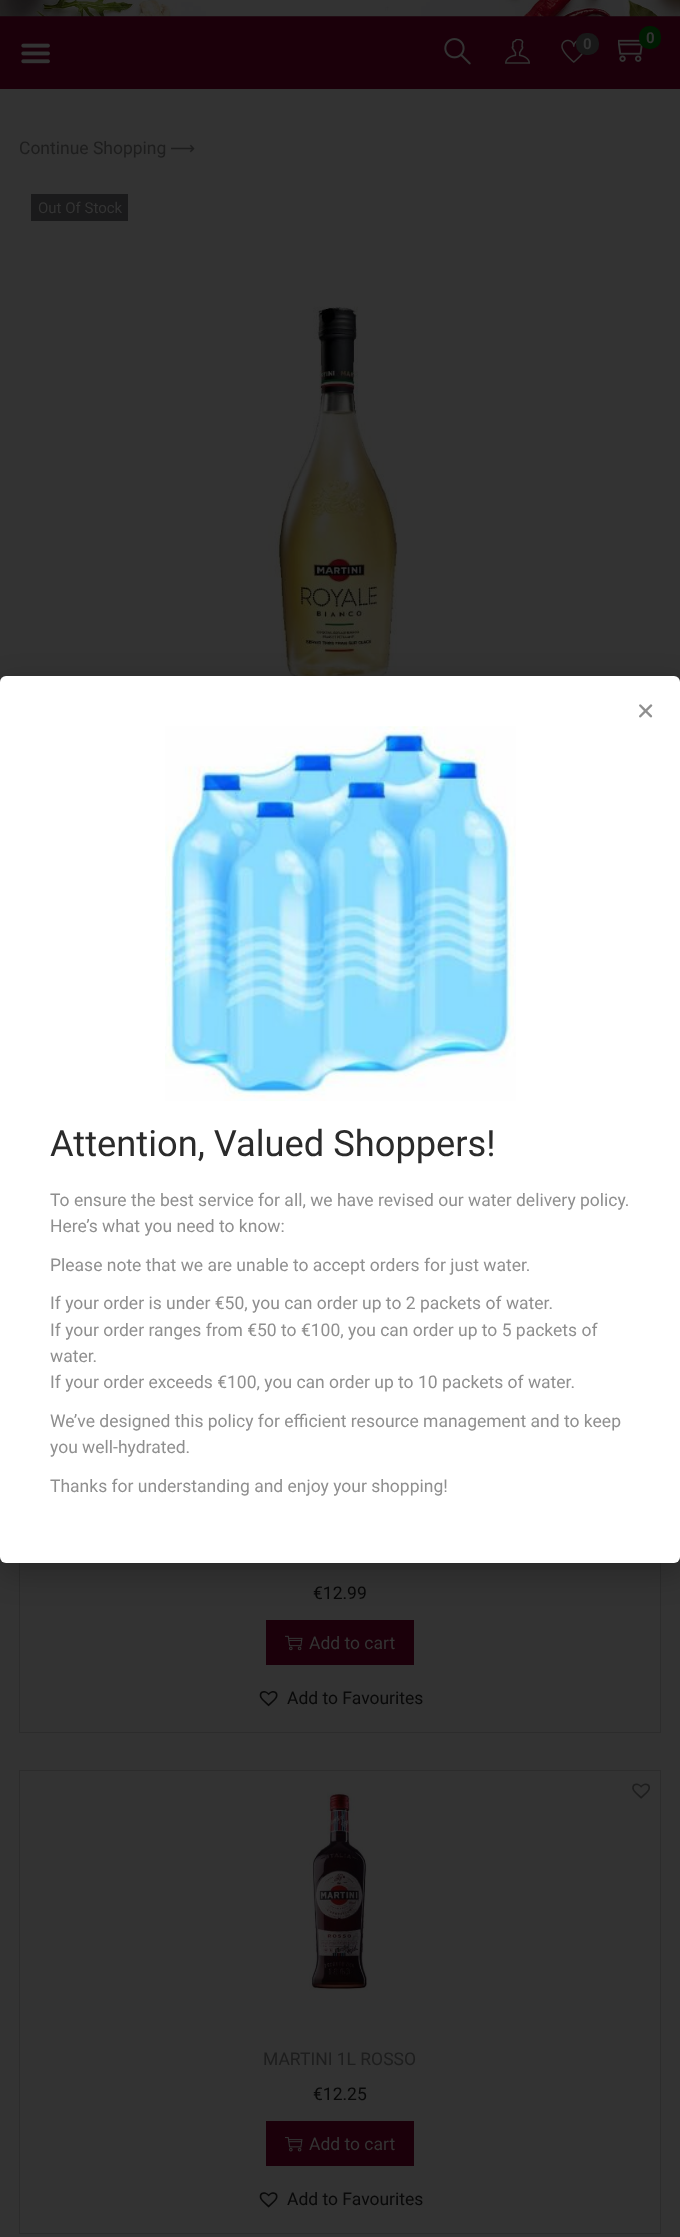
<!DOCTYPE html>
<meta charset="utf-8">
<style>body { margin: 0 } canvas { display: block }</style>
<canvas id="canvas" width="680" height="2237"></canvas>
<script type="module">
  const canvas = document.getElementById("canvas");
  const g = canvas.getContext("2d");
  g.miterLimit = 4;
  g.fontKerning = "normal";
  function drawText(s, x, y, [font, color]) {
    g.font = font;
    g.fillStyle = color;
    g.fillText(s, x, y);
  }
  function fillBox(x, y, w, h, color) {
    g.fillStyle = color;
    g.fillRect(x, y, w, h);
  }
  function fillRounded(x, y, w, h, r, color) {
    g.fillStyle = color;
    g.beginPath();
    g.roundRect(x, y, w, h, r);
    g.fill();
  }
  async function drawPicture(src, x, y, w, h) {
    const img = new Image();
    img.src = src;
    await img.decode();
    g.drawImage(img, x, y, w, h);
  }

  const s1 = ["bold 15px Roboto", "#333333"];
  const s2 = ["17.5px Roboto", "#1D1D1D"];
  const s3 = ["17.5px DejaVu Sans", "#1D1D1D"];
  const s4 = ["15px Roboto", "#333333"];
  const s5 = ["17.5px Roboto", "#090909"];
  const s6 = ["17.5px Roboto", "#333333"];
  const s7 = ["36.25px Roboto", "#2B2B2B"];
  const s8 = ["17.5px Roboto", "#8F8F8F"];

  fillBox(0, 0, 680, 2237, "#333333");
  fillBox(0, 16, 680, 73, "#1B000A");
  await drawPicture("pic1.png", 0, 0, 680, 17);
  await drawPicture("pic2.png", 444, 38, 27, 27);
  await drawPicture("pic3.png", 505, 39, 25, 25);
  await drawPicture("pic4.png", 561, 39, 22, 24);
  fillRounded(576, 33, 23, 22, 10, "#181818");
  drawText("0", 583, 49, s1);
  await drawPicture("pic5.png", 618, 39, 25, 23);
  fillRounded(639, 26, 22, 23, 10, "#001B02");
  drawText("0", 646, 43, s1);
  await drawPicture("pic6.png", 21, 43, 29, 21);
  drawText("Continue Shopping", 19, 154, s2);
  drawText("⟶", 170, 154, s3);
  fillBox(31, 194, 97, 27, "#1A1A1B");
  drawText("Out Of Stock", 38, 213, s4);
  await drawPicture("pic7.png", 268, 306, 130, 370);
  g.strokeStyle = "#2C2C2C";
  g.strokeRect(19.5, 1269.5, 641, 463);
  drawText("€12.99", 313, 1599, s5);
  fillBox(266, 1620, 148, 45, "#1B000A");
  await drawPicture("pic8.png", 285, 1635, 18, 16);
  drawText("Add to cart", 309, 1649, s6);
  await drawPicture("pic9.png", 259, 1691, 19, 16);
  drawText("Add to Favourites", 287, 1704, s5);
  g.strokeRect(19.5, 1770.5, 641, 463);
  await drawPicture("pic10.png", 309, 1792, 59, 199);
  await drawPicture("pic11.png", 632, 1783, 18, 16);
  drawText("MARTINI 1L ROSSO", 263, 2065, s2);
  drawText("€12.25", 313, 2100, s5);
  fillBox(266, 2121, 148, 45, "#1B000A");
  await drawPicture("pic12.png", 285, 2137, 18, 15);
  drawText("Add to cart", 309, 2150, s6);
  await drawPicture("pic13.png", 259, 2192, 19, 16);
  drawText("Add to Favourites", 287, 2205, s5);
  g.fillStyle = "rgba(0, 0, 0, 0.2)";
  g.filter = "blur(14.5px)";
  g.beginPath();
  g.roundRect(-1, 683, 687, 893, 10);
  g.fill();
  g.filter = "none";
  fillRounded(0, 676, 680, 887, 6, "#FFFFFF");
  await drawPicture("pic14.png", 639, 704, 14, 14);
  await drawPicture("pic15.png", 165, 726, 351, 375);
  drawText("Attention, Valued Shoppers!", 50, 1156, s7);
  drawText("To ensure the best service for all, we have revised our water delivery policy.", 50, 1206, s8);
  drawText("Here’s what you need to know:", 50, 1232, s8);
  drawText("Please note that we are unable to accept orders for just water.", 50, 1271, s8);
  drawText("If your order is under €50, you can order up to 2 packets of water.", 50, 1309, s8);
  drawText("If your order ranges from €50 to €100, you can order up to 5 packets of", 50, 1336, s8);
  drawText("water.", 50, 1362, s8);
  drawText("If your order exceeds €100, you can order up to 10 packets of water.", 50, 1388, s8);
  drawText("We’ve designed this policy for efficient resource management and to keep", 50, 1427, s8);
  drawText("you well-hydrated.", 50, 1453, s8);
  drawText("Thanks for understanding and enjoy your shopping!", 50, 1492, s8);
</script>
